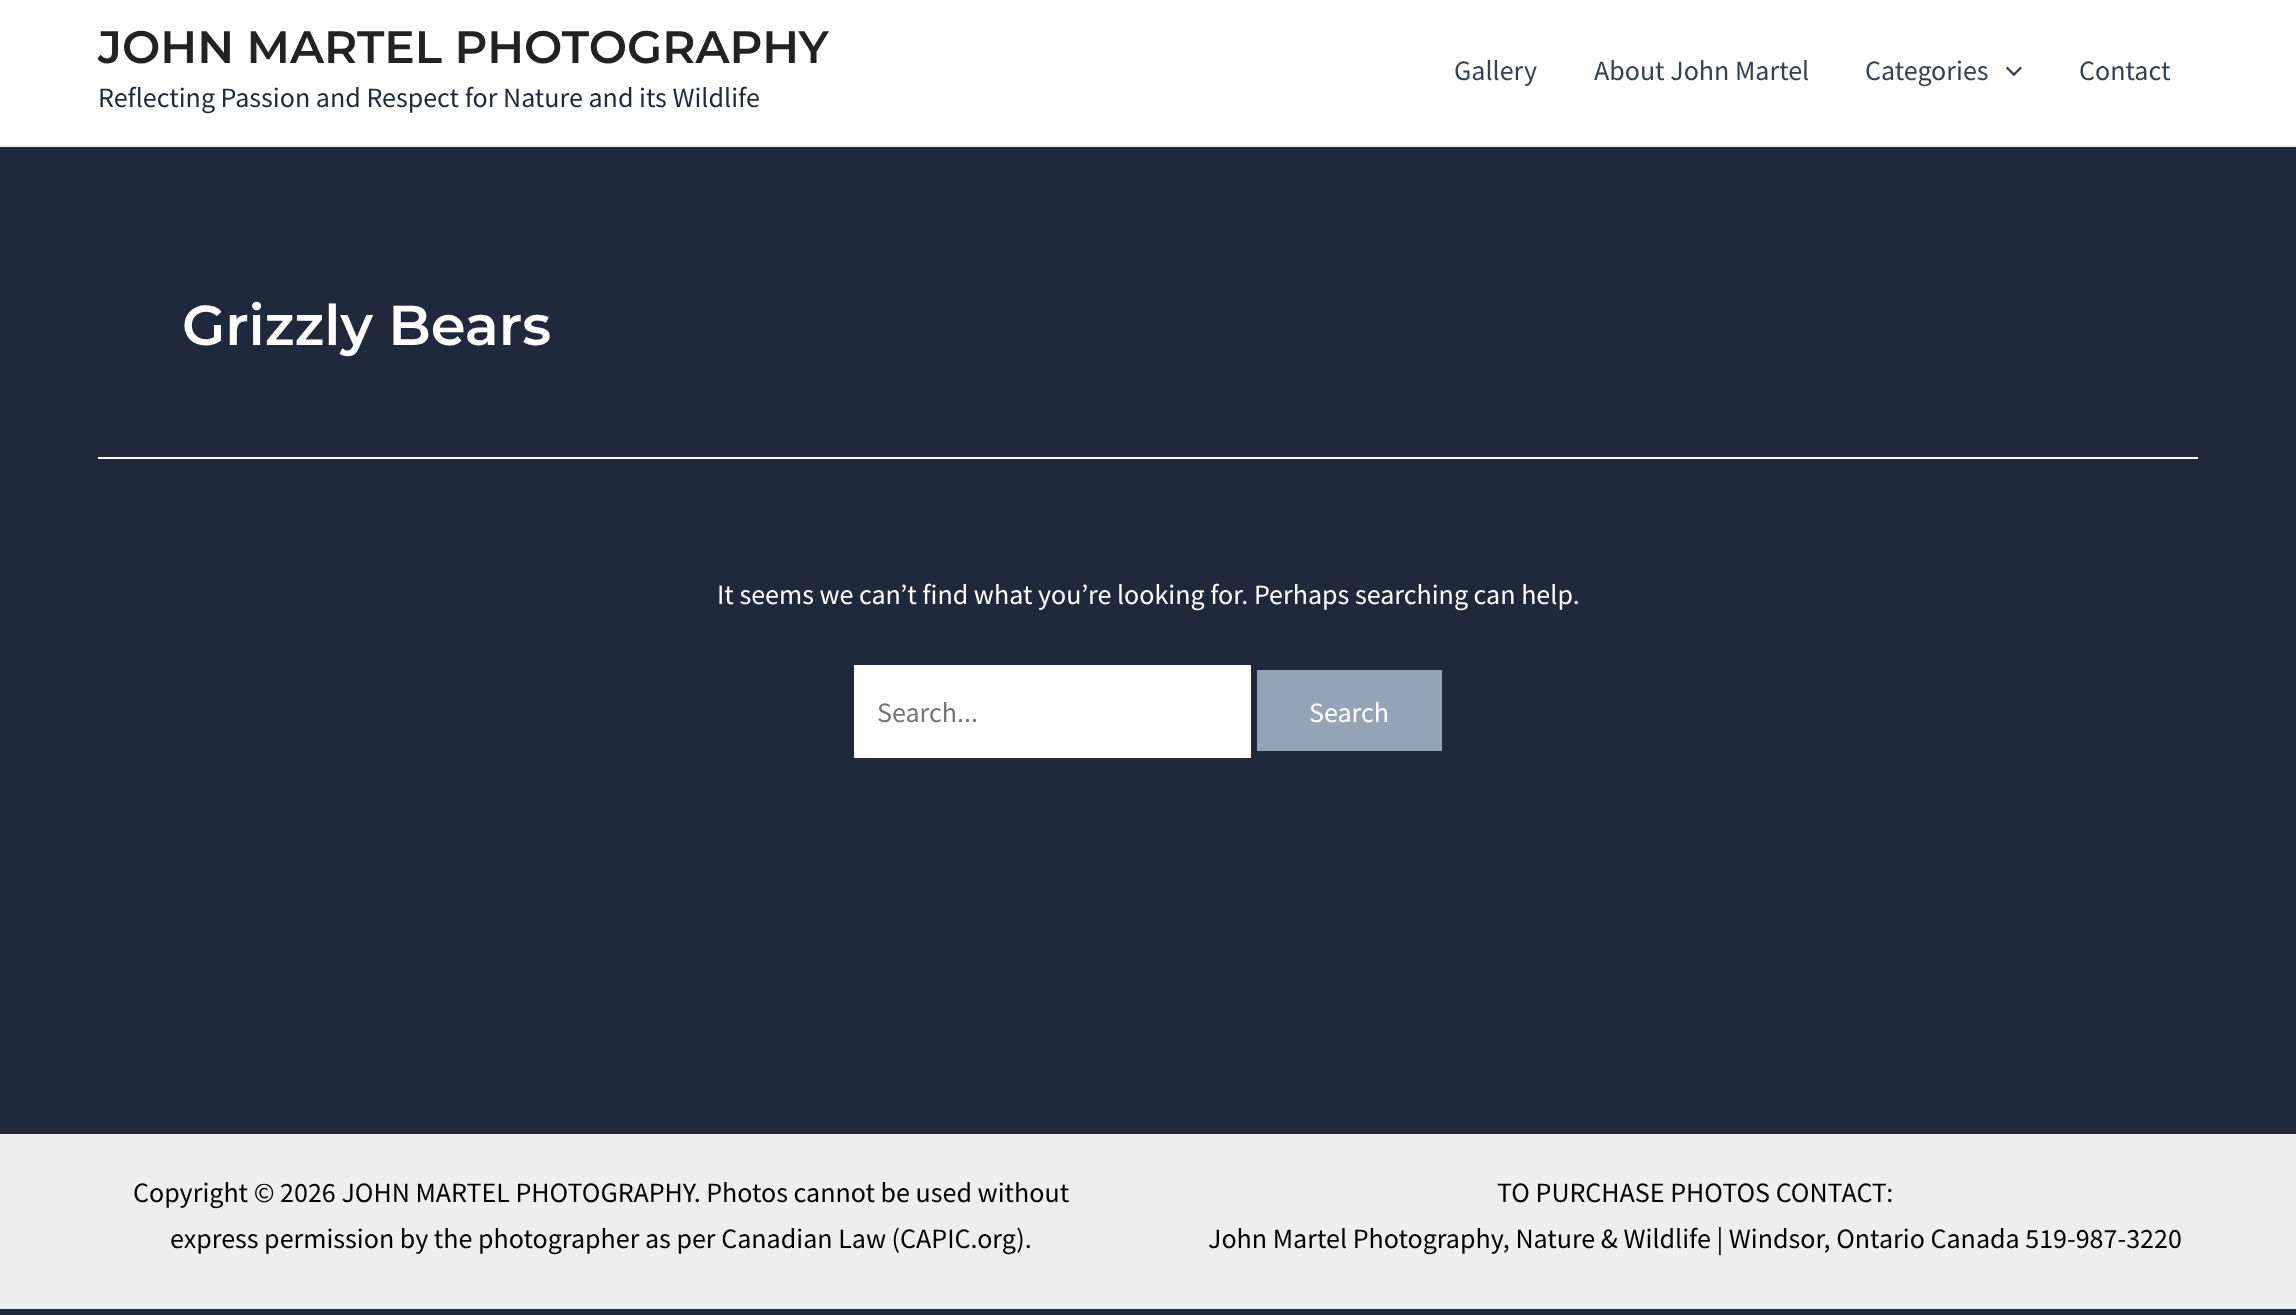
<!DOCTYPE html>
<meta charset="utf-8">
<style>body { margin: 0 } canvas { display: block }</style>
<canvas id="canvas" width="2296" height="1315"></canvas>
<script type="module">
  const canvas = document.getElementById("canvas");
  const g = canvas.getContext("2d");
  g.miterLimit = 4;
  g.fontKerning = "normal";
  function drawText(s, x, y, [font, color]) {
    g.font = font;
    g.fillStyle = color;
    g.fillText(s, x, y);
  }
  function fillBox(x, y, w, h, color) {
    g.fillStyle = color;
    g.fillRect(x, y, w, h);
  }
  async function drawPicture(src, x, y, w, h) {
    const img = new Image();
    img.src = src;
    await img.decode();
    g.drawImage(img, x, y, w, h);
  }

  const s1 = ["600 45.5px Montserrat", "#222222"];
  const s2 = ["28px Source Sans Pro", "#1E293B"];
  const s3 = ["28px Source Sans Pro", "#334155"];
  const s4 = ["600 56px Montserrat", "#FFFFFF"];
  const s5 = ["28px Source Sans Pro", "#FFFFFF"];
  const s6 = ["28px Source Sans Pro", "#757575"];
  const s7 = ["28px Source Sans Pro", "#000000"];

  fillBox(0, 0, 2296, 1315, "#1E293B");
  fillBox(0, 0, 2296, 145, "#FFFFFF");
  fillBox(0, 145, 2296, 2, "#EAEAEA");
  drawText("JOHN MARTEL PHOTOGRAPHY", 98, 63, s1);
  drawText("Reflecting Passion and Respect for Nature and its Wildlife", 98, 107, s2);
  drawText("Gallery", 1454, 80, s3);
  drawText("About John Martel", 1594, 80, s3);
  drawText("Categories", 1865, 80, s3);
  await drawPicture("pic1.png", 2006, 66, 16, 11);
  drawText("Contact", 2079, 80, s3);
  fillBox(98, 457, 2100, 2, "#FFFFFF");
  drawText("Grizzly Bears", 182, 345, s4);
  drawText("It seems we can’t find what you’re looking for. Perhaps searching can help.", 717, 604, s5);
  fillBox(854, 665, 397, 93, "#FFFFFF");
  drawText("Search...", 877, 722, s6);
  fillBox(1257, 670, 185, 81, "#94A3B8");
  drawText("Search", 1309, 722, s5);
  fillBox(0, 1134, 2296, 175, "#EEEEEE");
  drawText("Copyright © 2026 JOHN MARTEL PHOTOGRAPHY. Photos cannot be used without", 133, 1202, s7);
  drawText("express permission by the photographer as per Canadian Law (CAPIC.org).", 170, 1248, s7);
  drawText("TO PURCHASE PHOTOS CONTACT:", 1497, 1202, s7);
  drawText("John Martel Photography, Nature & Wildlife | Windsor, Ontario Canada 519-987-3220", 1208, 1248, s7);
</script>
